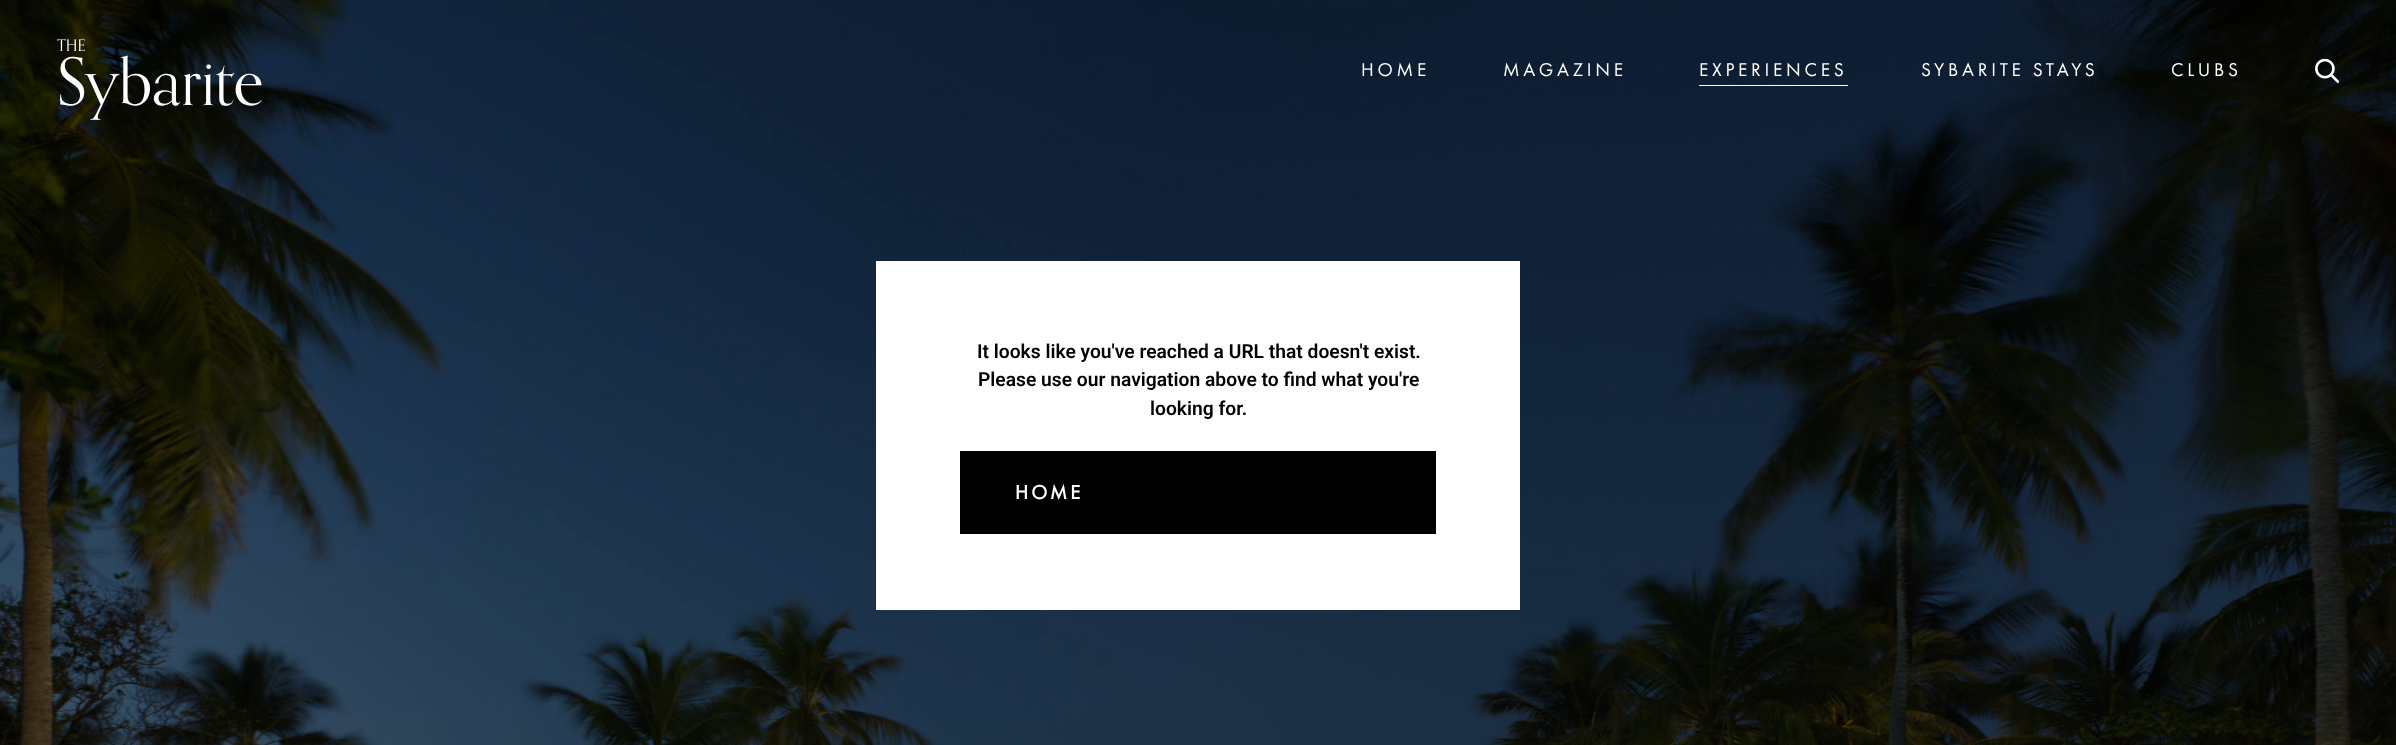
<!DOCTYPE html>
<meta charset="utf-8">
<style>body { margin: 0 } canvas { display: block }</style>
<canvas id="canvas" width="2396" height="745"></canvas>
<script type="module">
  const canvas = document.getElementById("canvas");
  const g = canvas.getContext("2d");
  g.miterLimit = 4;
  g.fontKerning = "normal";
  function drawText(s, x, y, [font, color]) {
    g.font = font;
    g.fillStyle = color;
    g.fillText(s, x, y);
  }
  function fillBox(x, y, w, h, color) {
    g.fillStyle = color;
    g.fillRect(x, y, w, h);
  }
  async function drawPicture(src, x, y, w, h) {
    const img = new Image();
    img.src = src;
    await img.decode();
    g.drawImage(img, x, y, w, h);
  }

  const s1 = ["16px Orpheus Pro", "#FFFFFF"];
  const s2 = ["65px Orpheus Pro", "#FFFFFF"];
  const s3 = ["19.25px Futura PT", "#FFFFFF"];
  const s4 = ["600 19.25px Roboto", "#000000"];
  const s5 = ["500 21px Futura PT", "#FFFFFF"];

  fillBox(0, 0, 2396, 745, "#FFFFFF");
  await drawPicture("pic2.png", 0, 0, 2396, 745);
  drawText("THE", 57, 51, s1);
  drawText("Sybarite", 57, 105, s2);
  g.letterSpacing = "3.75px";
  drawText("HOME", 1361, 76, s3);
  drawText("MAGAZINE", 1503, 76, s3);
  drawText("EXPERIENCES", 1699, 76, s3);
  fillBox(1699, 85, 149, 1, "#FFFFFF");
  drawText("SYBARITE STAYS", 1921, 76, s3);
  drawText("CLUBS", 2171, 76, s3);
  await drawPicture("pic1.png", 2315, 59, 24, 25);
  fillBox(876, 261, 644, 349, "#FFFFFF");
  g.letterSpacing = "0px";
  drawText("It looks like you've reached a URL that doesn't exist.", 977, 358, s4);
  drawText("Please use our navigation above to find what you're", 978, 386, s4);
  drawText("looking for.", 1150, 415, s4);
  fillBox(960, 451, 476, 83, "#000000");
  g.letterSpacing = "2.5px";
  drawText("HOME", 1015, 499, s5);
</script>
